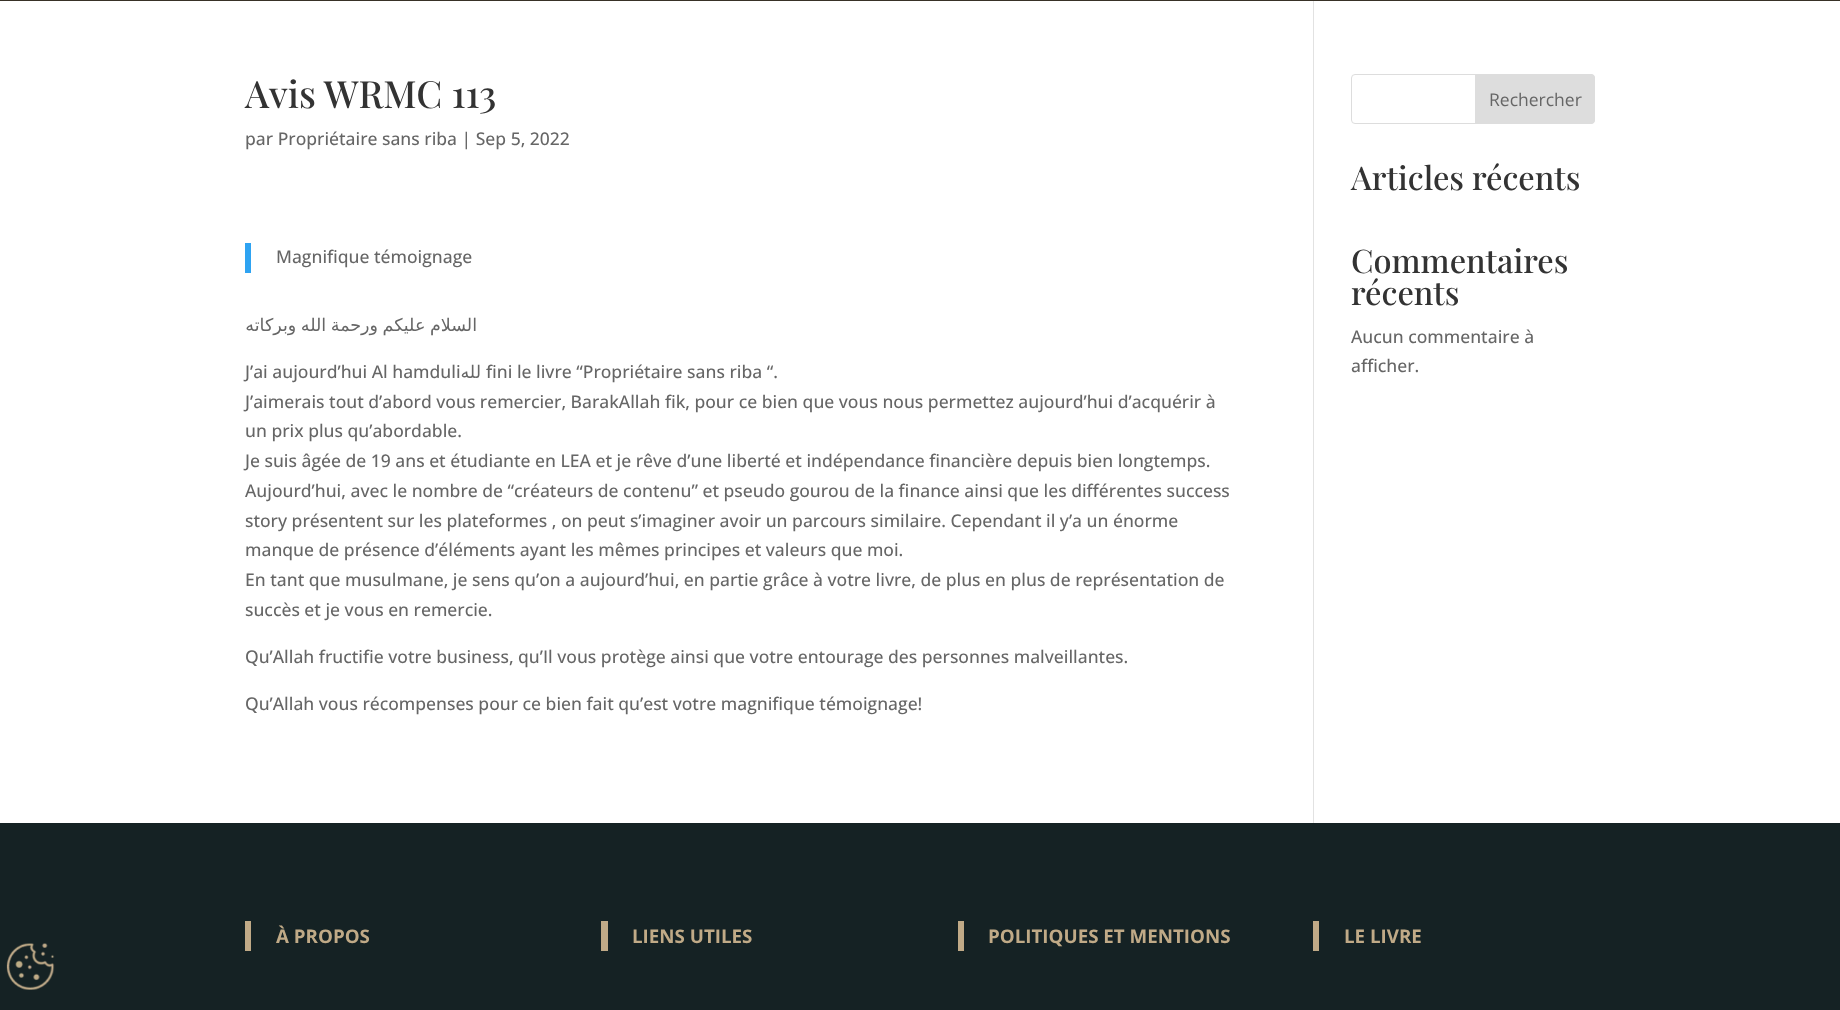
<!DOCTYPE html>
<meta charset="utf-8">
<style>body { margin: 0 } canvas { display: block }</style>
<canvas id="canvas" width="1840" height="1010"></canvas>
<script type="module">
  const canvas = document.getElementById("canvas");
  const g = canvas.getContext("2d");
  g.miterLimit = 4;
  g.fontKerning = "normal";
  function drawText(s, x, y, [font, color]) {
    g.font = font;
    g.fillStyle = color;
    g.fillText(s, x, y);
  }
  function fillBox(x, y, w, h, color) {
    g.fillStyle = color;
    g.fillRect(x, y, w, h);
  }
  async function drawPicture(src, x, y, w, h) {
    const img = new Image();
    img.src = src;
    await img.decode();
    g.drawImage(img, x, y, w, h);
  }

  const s1 = ["500 37.5px Playfair Display", "#333333"];
  const s2 = ["500 17.5px Open Sans", "#666666"];
  const s3 = ["17.5px DejaVu Sans", "#666666"];
  const s4 = ["17.5px Open Sans", "#666666"];
  const s5 = ["500 32.5px Playfair Display", "#333333"];
  const s6 = ["bold 18.75px Open Sans", "#C0AA87"];

  fillBox(0, 0, 1840, 1010, "#FFFFFF");
  fillBox(0, 0, 1840, 1, "#383127");
  fillBox(1313, 1, 1, 822, "#E2E2E2");
  drawText("Avis WRMC 113", 245, 108, s1);
  drawText("par Propriétaire sans riba | Sep 5, 2022", 245, 145, s2);
  fillBox(245, 243, 6, 30, "#2EA3F2");
  drawText("Magnifique témoignage", 276, 263, s2);
  g.wordSpacing = "-1px";
  g.direction = "rtl";
  drawText("السلام عليكم ورحمة الله وبركاته", 477, 331, s3);
  g.wordSpacing = "0px";
  g.direction = "ltr";
  drawText("J’ai aujourd’hui Al hamduli", 245, 378, s2);
  g.direction = "rtl";
  drawText("لله", 481, 378, s3);
  g.direction = "ltr";
  drawText("fini le livre “Propriétaire sans riba “.", 486, 378, s2);
  drawText("J’aimerais tout d’abord vous remercier, BarakAllah fik, pour ce bien que vous nous permettez aujourd’hui d’acquérir à", 245, 408, s2);
  drawText("un prix plus qu’abordable.", 245, 437, s2);
  drawText("Je suis âgée de 19 ans et étudiante en LEA et je rêve d’une liberté et indépendance financière depuis bien longtemps.", 245, 467, s2);
  drawText("Aujourd’hui, avec le nombre de “créateurs de contenu” et pseudo gourou de la finance ainsi que les différentes success", 245, 497, s2);
  drawText("story présentent sur les plateformes , on peut s’imaginer avoir un parcours similaire. Cependant il y’a un énorme", 245, 527, s2);
  drawText("manque de présence d’éléments ayant les mêmes principes et valeurs que moi.", 245, 556, s2);
  drawText("En tant que musulmane, je sens qu’on a aujourd’hui, en partie grâce à votre livre, de plus en plus de représentation de", 245, 586, s2);
  drawText("succès et je vous en remercie.", 245, 616, s2);
  drawText("Qu’Allah fructifie votre business, qu’Il vous protège ainsi que votre entourage des personnes malveillantes.", 245, 663, s2);
  drawText("Qu’Allah vous récompenses pour ce bien fait qu’est votre magnifique témoignage!", 245, 710, s2);
  g.beginPath();
  g.roundRect(1351.5, 74.5, 243, 49, 3.5);
  g.strokeStyle = "#DDDDDD";
  g.stroke();
  g.fillStyle = "#DDDDDD";
  g.beginPath();
  g.roundRect(1475.5, 74.5, 119, 49, [0, 3.5, 3.5, 0]);
  g.fill();
  g.stroke();
  drawText("Rechercher", 1489, 106, s4);
  drawText("Articles récents", 1351, 190, s5);
  drawText("Commentaires", 1351, 273, s5);
  drawText("récents", 1351, 305, s5);
  drawText("Aucun commentaire à", 1351, 343, s2);
  drawText("afficher.", 1351, 372, s2);
  fillBox(0, 823, 1840, 187, "#152224");
  fillBox(245, 921, 6, 30, "#C0AA87");
  drawText("À PROPOS", 276, 943, s6);
  fillBox(601, 921, 7, 30, "#C0AA87");
  drawText("LIENS UTILES", 632, 943, s6);
  fillBox(958, 921, 6, 30, "#C0AA87");
  drawText("POLITIQUES ET MENTIONS", 988, 943, s6);
  fillBox(1313, 921, 6, 30, "#C0AA87");
  drawText("LE LIVRE", 1344, 943, s6);
  await drawPicture("pic1.png", 6, 943, 49, 47);
</script>
